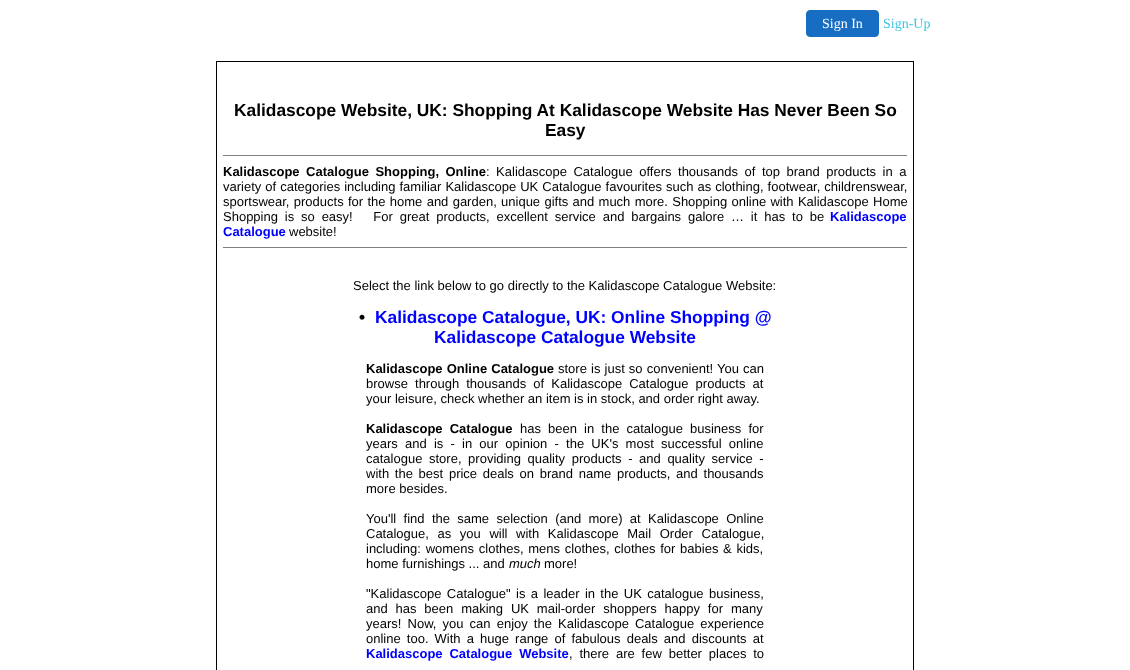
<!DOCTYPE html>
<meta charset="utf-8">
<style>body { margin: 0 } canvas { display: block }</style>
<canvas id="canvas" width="1130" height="670"></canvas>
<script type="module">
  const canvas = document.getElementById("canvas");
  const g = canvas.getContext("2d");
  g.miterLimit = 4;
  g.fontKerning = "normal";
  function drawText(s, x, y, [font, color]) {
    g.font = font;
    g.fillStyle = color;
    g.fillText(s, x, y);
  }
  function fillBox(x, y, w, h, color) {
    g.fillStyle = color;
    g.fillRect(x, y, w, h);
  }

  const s1 = ["14px Liberation Serif", "#FFFFFF"];
  const s2 = ["14px Liberation Serif", "#41C5E4"];
  const s3 = ["bold 17.35px Liberation Sans", "#000000"];
  const s4 = ["bold 13px Liberation Sans", "#000000"];
  const s5 = ["13px Liberation Sans", "#000000"];
  const s6 = ["bold 13px Liberation Sans", "#0000FF"];
  const s7 = ["bold 17.35px Liberation Sans", "#0000FF"];
  const s8 = ["italic 13px Liberation Sans", "#000000"];

  fillBox(0, 0, 1130, 670, "#FFFFFF");
  g.fillStyle = "#166DC2";
  g.beginPath();
  g.roundRect(806.5, 10.5, 72, 26, 3.5);
  g.fill();
  g.strokeStyle = "#166DC2";
  g.stroke();
  drawText("Sign In", 822, 28, s1);
  drawText("Sign-Up", 883, 28, s2);
  fillBox(216, 61, 698, 609, "#000000");
  fillBox(217, 62, 696, 608, "#FFFFFF");
  drawText("Kalidascope Website, UK: Shopping At Kalidascope Website Has Never Been So", 234, 116, s3);
  drawText("Easy", 545, 136, s3);
  fillBox(223, 155, 684, 1, "#808080");
  g.wordSpacing = "2.9px";
  drawText("Kalidascope Catalogue Shopping, Online", 223, 176, s4);
  drawText(": Kalidascope Catalogue offers thousands of top brand products in a", 486, 176, s5);
  g.wordSpacing = "0.4px";
  drawText("variety of categories including familiar Kalidascope UK Catalogue favourites such as clothing, footwear, childrenswear,", 223, 191, s5);
  g.wordSpacing = "0.7px";
  drawText("sportswear, products for the home and garden, unique gifts and much more. Shopping online with Kalidascope Home", 223, 206, s5);
  g.wordSpacing = "3.25px";
  drawText("Shopping is so easy!   For great products, excellent service and bargains galore … it has to be", 223, 221, s5);
  g.wordSpacing = "0px";
  drawText("Kalidascope", 830, 221, s6);
  drawText("Catalogue", 223, 236, s6);
  drawText("website!", 289, 236, s5);
  fillBox(223, 247, 684, 1, "#808080");
  drawText("Select the link below to go directly to the Kalidascope Catalogue Website:", 353, 290, s5);
  drawText("•", 359, 323, s3);
  drawText("Kalidascope Catalogue, UK: Online Shopping @", 375, 323, s7);
  drawText("Kalidascope Catalogue Website", 434, 343, s7);
  g.wordSpacing = "0.5px";
  drawText("Kalidascope Online Catalogue", 366, 373, s4);
  drawText("store is just so convenient! You can", 558, 373, s5);
  g.wordSpacing = "3.5px";
  drawText("browse through thousands of Kalidascope Catalogue products at", 366, 388, s5);
  g.wordSpacing = "0px";
  drawText("your leisure, check whether an item is in stock, and order right away.", 366, 403, s5);
  g.wordSpacing = "3.5px";
  drawText("Kalidascope Catalogue", 366, 433, s4);
  drawText("has been in the catalogue business for", 520, 433, s5);
  g.wordSpacing = "3.6px";
  drawText("years and is - in our opinion - the UK's most successful online", 366, 448, s5);
  g.wordSpacing = "3px";
  drawText("catalogue store, providing quality products - and quality service -", 366, 463, s5);
  g.wordSpacing = "2.1px";
  drawText("with the best price deals on brand name products, and thousands", 366, 478, s5);
  g.wordSpacing = "0px";
  drawText("more besides.", 366, 493, s5);
  g.wordSpacing = "3.75px";
  drawText("You'll find the same selection (and more) at Kalidascope Online", 366, 523, s5);
  g.wordSpacing = "5px";
  drawText("Catalogue, as you will with Kalidascope Mail Order Catalogue,", 366, 538, s5);
  g.wordSpacing = "1.1px";
  drawText("including: womens clothes, mens clothes, clothes for babies & kids,", 366, 553, s5);
  g.wordSpacing = "0px";
  drawText("home furnishings ... and", 366, 568, s5);
  drawText("much", 509, 568, s8);
  drawText("more!", 544, 568, s5);
  g.wordSpacing = "1.75px";
  drawText("\"Kalidascope Catalogue\" is a leader in the UK catalogue business,", 366, 598, s5);
  g.wordSpacing = "4.25px";
  drawText("and has been making UK mail-order shoppers happy for many", 366, 613, s5);
  g.wordSpacing = "2.5px";
  drawText("years! Now, you can enjoy the Kalidascope Catalogue experience", 366, 628, s5);
  drawText("online too. With a huge range of fabulous deals and discounts at", 366, 643, s5);
  g.wordSpacing = "3.25px";
  drawText("Kalidascope Catalogue Website", 366, 658, s6);
  drawText(", there are few better places to", 569, 658, s5);
</script>
